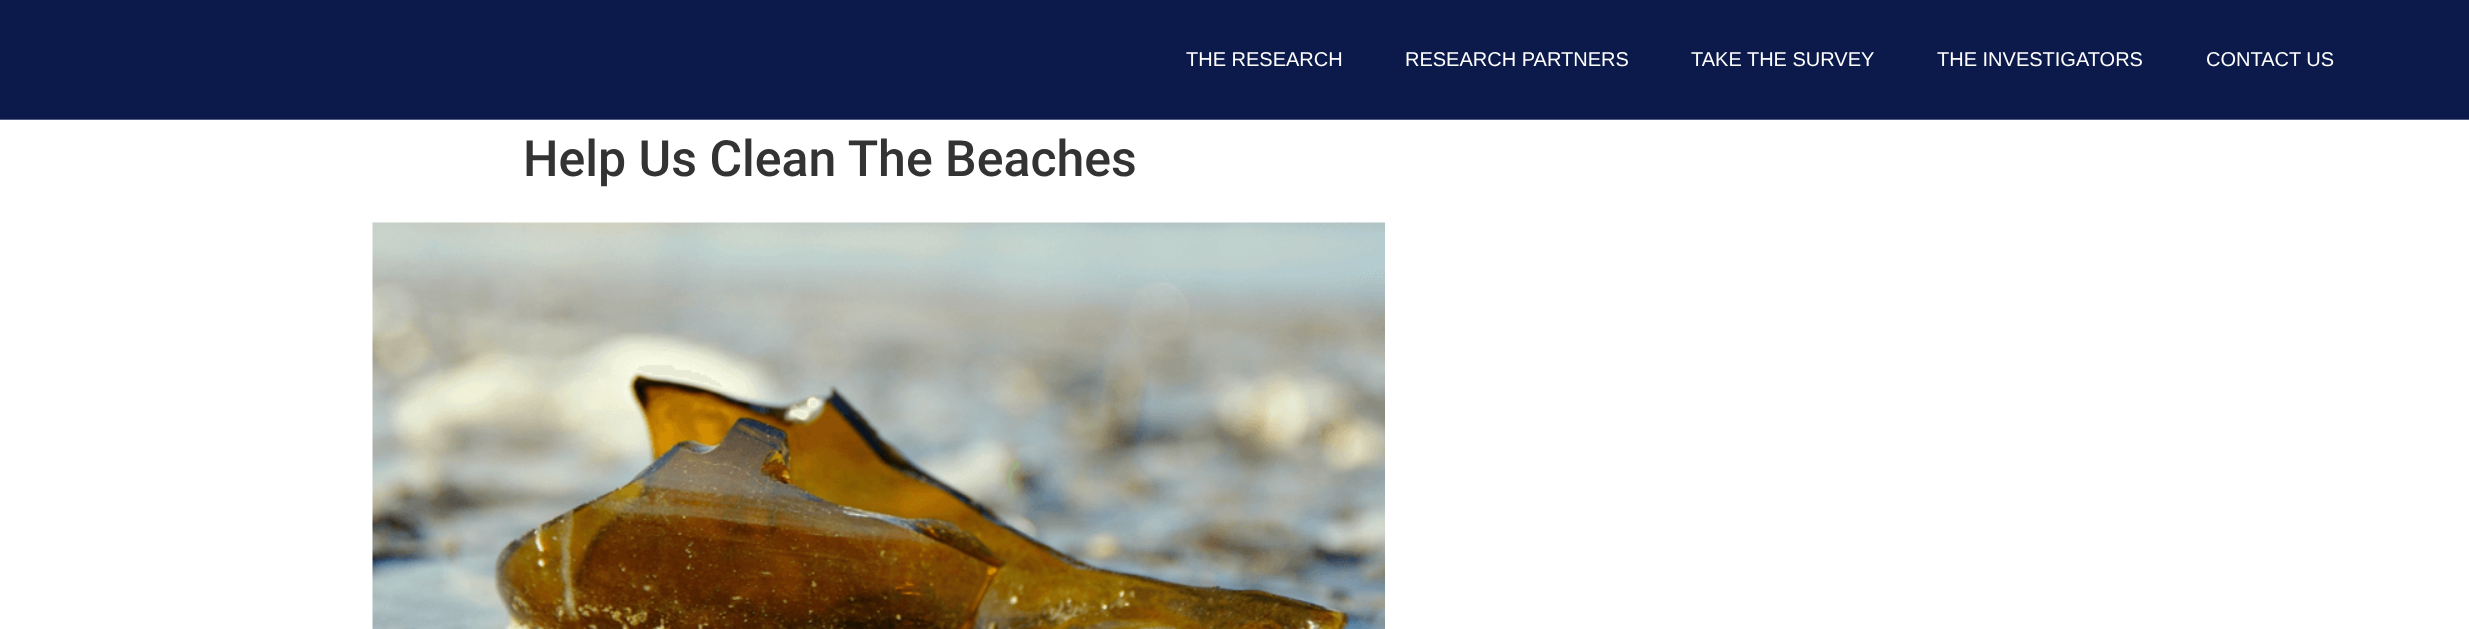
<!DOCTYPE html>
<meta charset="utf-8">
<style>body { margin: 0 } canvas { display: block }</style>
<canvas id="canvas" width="2469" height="629"></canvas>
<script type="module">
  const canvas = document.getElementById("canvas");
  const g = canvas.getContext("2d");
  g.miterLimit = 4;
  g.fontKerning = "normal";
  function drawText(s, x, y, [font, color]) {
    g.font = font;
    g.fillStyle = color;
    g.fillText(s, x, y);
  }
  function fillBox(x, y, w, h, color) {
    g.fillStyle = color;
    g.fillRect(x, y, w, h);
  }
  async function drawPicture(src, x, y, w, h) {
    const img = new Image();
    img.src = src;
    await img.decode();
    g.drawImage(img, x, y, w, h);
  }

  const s1 = ["20px Liberation Sans", "#FFFFFF"];
  const s2 = ["500 50px Roboto", "#333333"];

  fillBox(0, 0, 2469, 629, "#FFFFFF");
  fillBox(0, 0, 2469, 119, "#0B1A4A");
  fillBox(0, 119, 2469, 1, "#525D7F");
  drawText("THE RESEARCH", 1186, 66, s1);
  drawText("RESEARCH PARTNERS", 1405, 66, s1);
  drawText("TAKE THE SURVEY", 1691, 66, s1);
  drawText("THE INVESTIGATORS", 1937, 66, s1);
  drawText("CONTACT US", 2206, 66, s1);
  drawText("Help Us Clean The Beaches", 523, 176, s2);
  await drawPicture("pic1.png", 372, 222, 1013, 407);
</script>
